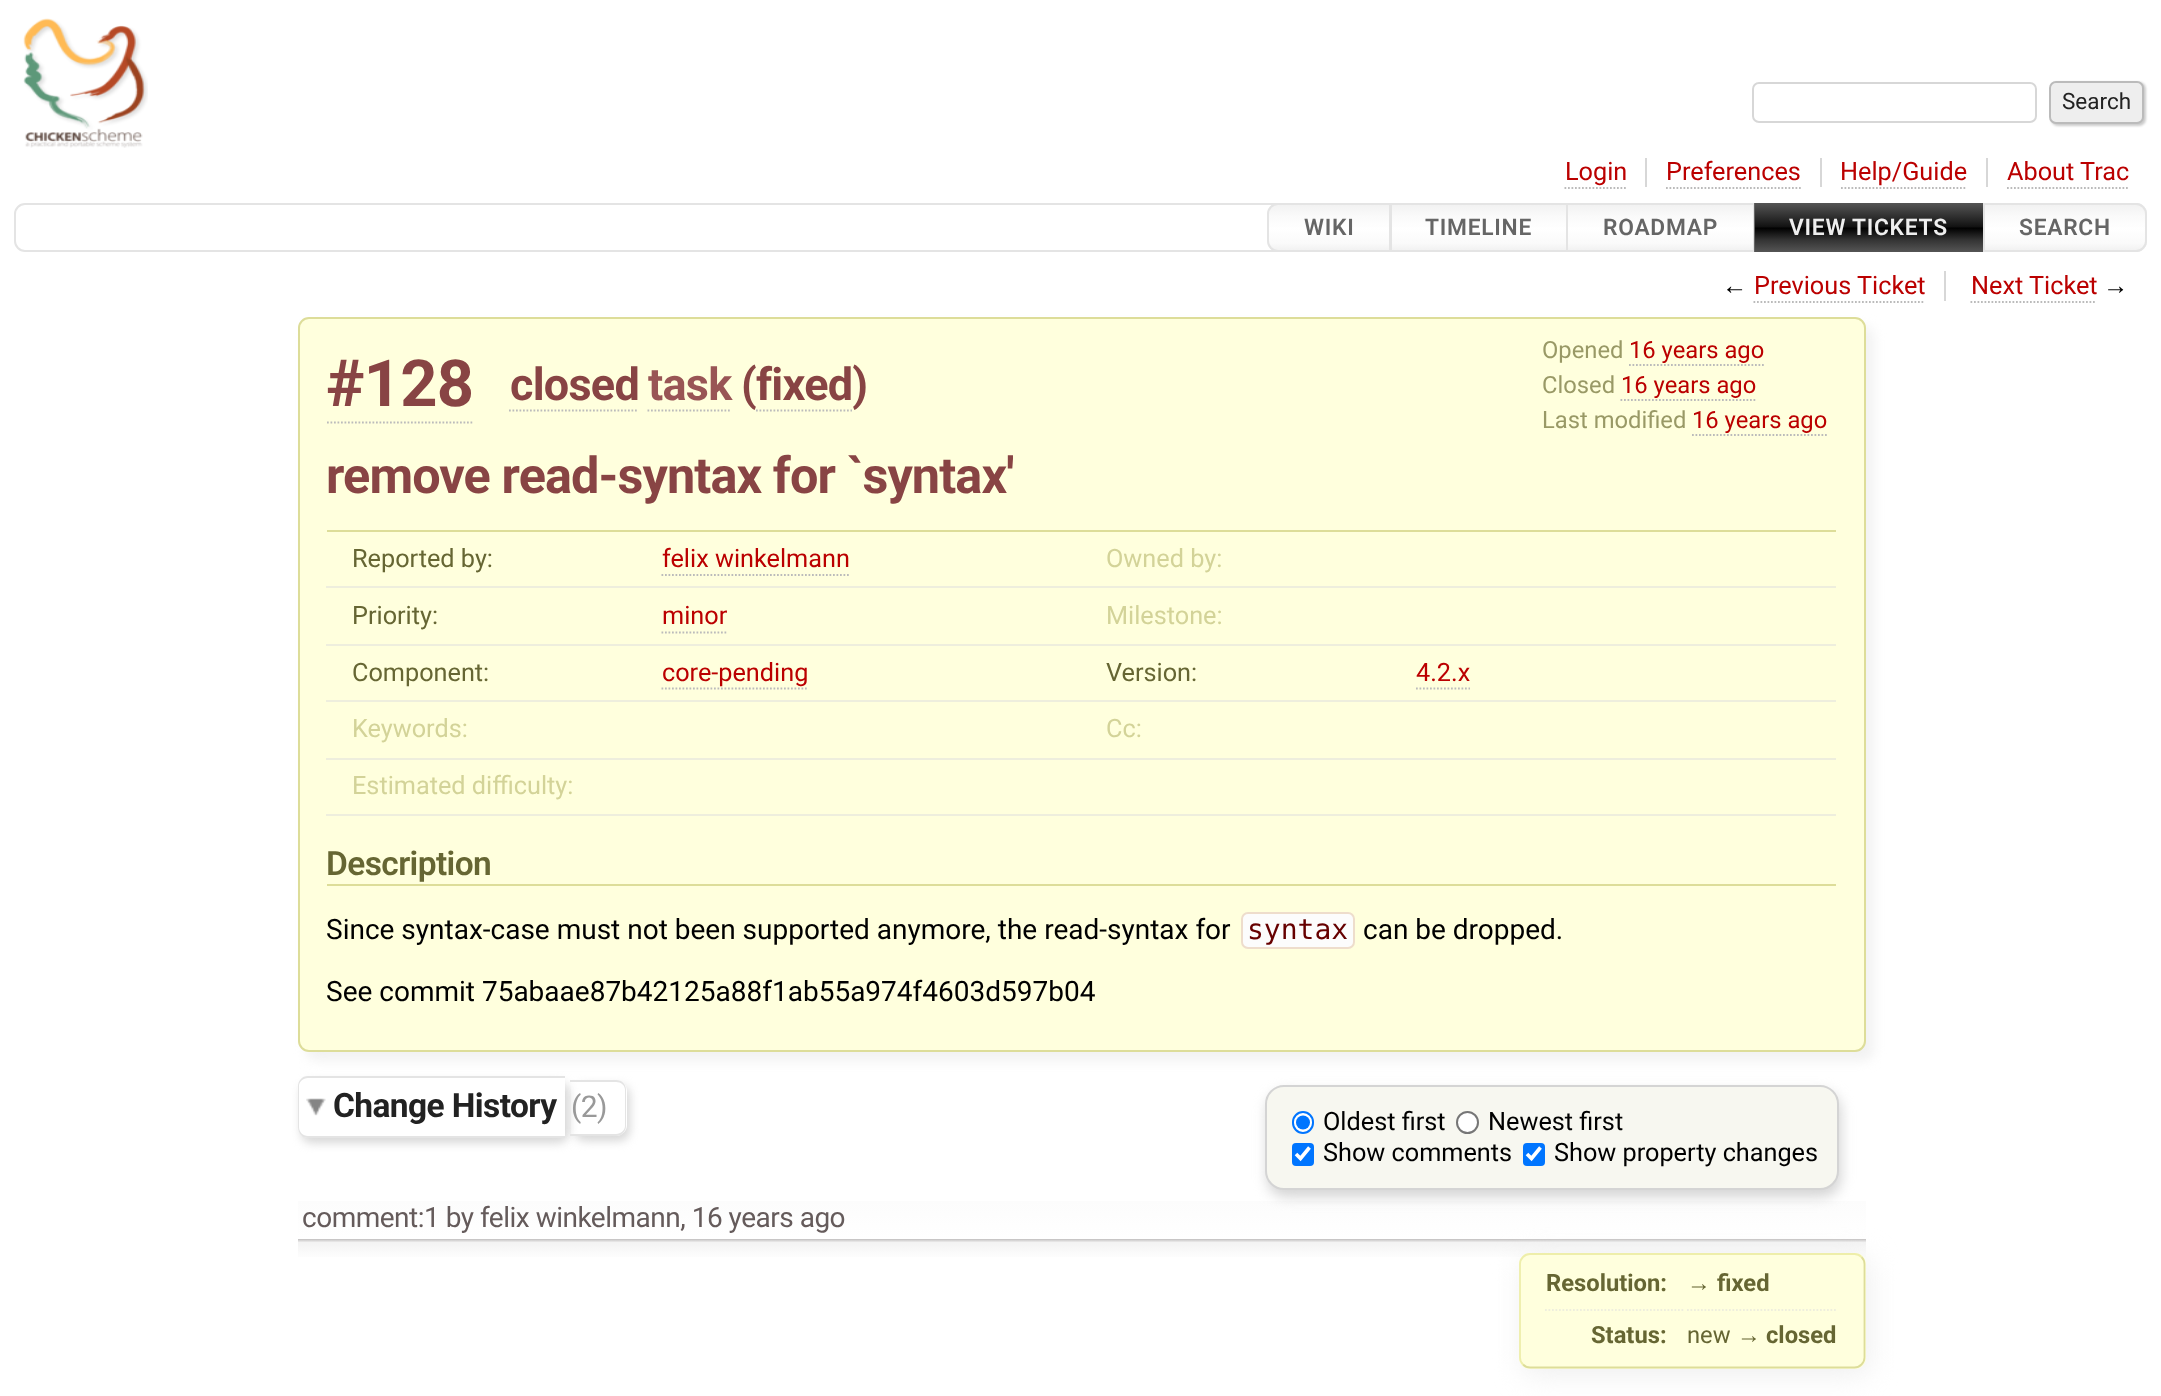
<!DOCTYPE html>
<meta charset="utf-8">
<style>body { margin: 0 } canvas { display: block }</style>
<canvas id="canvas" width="2161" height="1396"></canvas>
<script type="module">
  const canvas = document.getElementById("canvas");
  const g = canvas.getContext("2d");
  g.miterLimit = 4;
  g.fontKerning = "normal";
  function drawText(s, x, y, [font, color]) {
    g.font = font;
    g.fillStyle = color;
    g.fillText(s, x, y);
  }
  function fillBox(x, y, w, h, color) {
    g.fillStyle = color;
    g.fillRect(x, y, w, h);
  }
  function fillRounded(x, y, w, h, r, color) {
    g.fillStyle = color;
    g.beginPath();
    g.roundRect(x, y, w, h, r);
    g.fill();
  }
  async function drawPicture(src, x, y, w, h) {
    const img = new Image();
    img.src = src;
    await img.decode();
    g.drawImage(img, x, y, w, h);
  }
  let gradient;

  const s1 = ["22.5px Roboto", "#222222"];
  const s2 = ["25.25px Roboto", "#BB0000"];
  const s3 = ["600 22.75px Roboto", "#666666"];
  const s4 = ["600 22.75px Roboto", "#EEEEEE"];
  const s5 = ["25.25px Liberation Sans", "#000000"];
  const s6 = ["bold 65px Roboto", "#884444"];
  const s7 = ["bold 45px Roboto", "#884444"];
  const s8 = ["bold 45px Roboto", "#995555"];
  const s9 = ["23.75px Roboto", "#999966"];
  const s10 = ["23.75px Roboto", "#BB0000"];
  const s11 = ["bold 50.4px Roboto", "#884444"];
  const s12 = ["25.25px Roboto", "#666633"];
  const s13 = ["25.25px Roboto", "#D3D398"];
  const s14 = ["600 33.5px Roboto", "#666633"];
  const s15 = ["28px Roboto", "#000000"];
  const s16 = ["28px DejaVu Sans Mono", "#660000"];
  const s17 = ["bold 33.5px Roboto", "#222222"];
  const s18 = ["30px Roboto", "#999999"];
  const s19 = ["25.25px Roboto", "#000000"];
  const s20 = ["28px Roboto", "#655B5B"];
  const s21 = ["bold 23.75px Roboto", "#666633"];
  const s22 = ["23.75px Liberation Sans", "#666633"];
  const s23 = ["23.75px Roboto", "#666633"];

  fillBox(0, 0, 2161, 1396, "#FFFFFF");
  await drawPicture("pic1.png", 23, 18, 125, 130);
  g.beginPath();
  g.roundRect(1753, 83, 283, 39, 6);
  g.strokeStyle = "#D7D7D7";
  g.lineWidth = 2;
  g.stroke();
  g.fillStyle = "#CCCCCC";
  g.filter = "blur(1px)";
  g.beginPath();
  g.roundRect(2051, 82, 95, 44, 7);
  g.fill();
  g.filter = "none";
  g.fillStyle = "#EEEEEE";
  g.beginPath();
  g.roundRect(2050, 82, 93, 41, 6);
  g.fill();
  g.strokeStyle = "#BBBBBB";
  g.stroke();
  drawText("Search", 2062, 109, s1);
  fillBox(1645, 158, 2, 29, "#D7D7D7");
  drawText("Login", 1565, 180, s2);
  g.beginPath();
  g.moveTo(1564.5, 188);
  g.lineTo(1627.5, 188);
  g.lineWidth = 1.8;
  g.setLineDash([1.75, 1.75]);
  g.stroke();
  fillBox(1820, 158, 2, 29, "#D7D7D7");
  drawText("Preferences", 1666, 180, s2);
  g.beginPath();
  g.moveTo(1666, 188);
  g.lineTo(1801, 188);
  g.stroke();
  fillBox(1986, 158, 2, 29, "#D7D7D7");
  drawText("Help/Guide", 1840, 180, s2);
  g.beginPath();
  g.moveTo(1841, 188);
  g.lineTo(1967, 188);
  g.stroke();
  drawText("About Trac", 2007, 180, s2);
  g.beginPath();
  g.moveTo(2007, 188);
  g.lineTo(2128, 188);
  g.stroke();
  g.beginPath();
  g.roundRect(15, 204, 2131, 47, 10);
  g.strokeStyle = "#E4E4E4";
  g.lineWidth = 2;
  g.setLineDash([]);
  g.stroke();
  g.save();
  g.beginPath();
  g.roundRect(1267, 203, 124, 49, [11, 0, 0, 11]);
  g.clip();
  gradient = g.createLinearGradient(1329, 205, 1329, 250);
  gradient.addColorStop(0, "#F2F2F2");
  gradient.addColorStop(0.25, "#FAFAFA");
  gradient.addColorStop(0.49, "#FEFEFE");
  gradient.addColorStop(0.51, "#FFFFFF");
  gradient.addColorStop(0.85, "#FAFAFA");
  gradient.addColorStop(1, "#F2F2F2");
  g.fillStyle = gradient;
  g.fillRect(1267, 205, 122, 45);
  g.restore();
  g.beginPath();
  g.roundRect(1268, 204, 122, 47, [10, 0, 0, 10]);
  g.stroke();
  g.letterSpacing = "0.75px";
  drawText("WIKI", 1304, 235, s3);
  gradient = g.createLinearGradient(1480, 205, 1480, 250);
  gradient.addColorStop(0, "#F2F2F2");
  gradient.addColorStop(0.25, "#FAFAFA");
  gradient.addColorStop(0.49, "#FEFEFE");
  gradient.addColorStop(0.51, "#FFFFFF");
  gradient.addColorStop(0.85, "#FAFAFA");
  gradient.addColorStop(1, "#F2F2F2");
  g.fillStyle = gradient;
  g.fillRect(1392, 205, 174, 45);
  g.strokeRect(1391, 204, 178, 47);
  drawText("TIMELINE", 1425, 235, s3);
  gradient = g.createLinearGradient(1661, 205, 1661, 250);
  gradient.addColorStop(0, "#F2F2F2");
  gradient.addColorStop(0.25, "#FAFAFA");
  gradient.addColorStop(0.49, "#FEFEFE");
  gradient.addColorStop(0.51, "#FFFFFF");
  gradient.addColorStop(0.85, "#FAFAFA");
  gradient.addColorStop(1, "#F2F2F2");
  g.fillStyle = gradient;
  g.fillRect(1568, 205, 185, 45);
  g.strokeRect(1567, 204, 187, 47);
  drawText("ROADMAP", 1603, 235, s3);
  g.strokeStyle = "#666666";
  g.strokeRect(1755, 204, 229, 47);
  gradient = g.createLinearGradient(1869, 203, 1869, 252);
  gradient.addColorStop(0, "#555555");
  gradient.addColorStop(0.25, "#333333");
  gradient.addColorStop(0.49, "#111111");
  gradient.addColorStop(0.51, "#000000");
  gradient.addColorStop(0.75, "#333333");
  gradient.addColorStop(1, "#555555");
  g.fillStyle = gradient;
  g.fillRect(1755, 203, 228, 49);
  drawText("VIEW TICKETS", 1789, 235, s4);
  g.save();
  g.beginPath();
  g.roundRect(1983, 203, 164, 49, [0, 11, 11, 0]);
  g.clip();
  gradient = g.createLinearGradient(2065, 205, 2065, 250);
  gradient.addColorStop(0, "#F2F2F2");
  gradient.addColorStop(0.25, "#FAFAFA");
  gradient.addColorStop(0.49, "#FEFEFE");
  gradient.addColorStop(0.51, "#FFFFFF");
  gradient.addColorStop(0.85, "#FAFAFA");
  gradient.addColorStop(1, "#F2F2F2");
  g.fillStyle = gradient;
  g.fillRect(1985, 205, 162, 45);
  g.restore();
  g.beginPath();
  g.roundRect(1984, 204, 162, 47, [0, 10, 10, 0]);
  g.strokeStyle = "#E4E4E4";
  g.stroke();
  drawText("SEARCH", 2019, 235, s3);
  fillBox(1944, 271, 2, 30, "#D7D7D7");
  g.letterSpacing = "0px";
  drawText("←", 1722, 294, s5);
  drawText("Previous Ticket", 1754, 294, s2);
  g.beginPath();
  g.moveTo(1753.5, 302);
  g.lineTo(1925, 302);
  g.strokeStyle = "#BBBBBB";
  g.lineWidth = 1.8;
  g.setLineDash([1.75, 1.75]);
  g.stroke();
  drawText("Next Ticket", 1971, 294, s2);
  g.beginPath();
  g.moveTo(1970.5, 302);
  g.lineTo(2096.5, 302);
  g.stroke();
  drawText("→", 2103, 294, s5);
  g.save();
  g.beginPath();
  g.moveTo(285, 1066);
  g.lineTo(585, 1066);
  g.lineTo(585, 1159);
  g.lineTo(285, 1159);
  g.closePath();
  g.moveTo(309, 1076);
  g.lineTo(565, 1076);
  g.lineTo(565, 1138);
  g.lineTo(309, 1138);
  g.bezierCurveTo(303, 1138, 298, 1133, 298, 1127);
  g.lineTo(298, 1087);
  g.bezierCurveTo(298, 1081, 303, 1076, 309, 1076);
  g.closePath();
  g.clip("evenodd");
  g.fillStyle = "#D7D7D7";
  g.filter = "blur(5px)";
  g.beginPath();
  g.roundRect(301, 1082, 268, 61, 11);
  g.fill();
  g.filter = "none";
  g.restore();
  await drawPicture("pic2.png", 306, 1098, 20, 18);
  g.fillStyle = "#E4E4E4";
  g.beginPath();
  g.moveTo(308, 1076);
  g.lineTo(565, 1076);
  g.lineTo(565, 1138);
  g.lineTo(308, 1138);
  g.bezierCurveTo(302, 1138, 298, 1133, 298, 1127);
  g.lineTo(298, 1086);
  g.bezierCurveTo(298, 1081, 302, 1076, 308, 1076);
  g.closePath();
  g.moveTo(308, 1078);
  g.lineTo(565, 1078);
  g.lineTo(565, 1136);
  g.lineTo(308, 1136);
  g.bezierCurveTo(303, 1136, 299, 1132, 299, 1127);
  g.lineTo(299, 1086);
  g.bezierCurveTo(299, 1082, 303, 1078, 308, 1078);
  g.closePath();
  g.fill("evenodd");
  g.fillStyle = "#F2F2F2";
  g.filter = "blur(5.5px)";
  g.beginPath();
  g.roundRect(306, 326, 1568, 735, 11);
  g.fill();
  g.filter = "none";
  g.fillStyle = "#FFFFDD";
  g.beginPath();
  g.roundRect(299, 318, 1566, 733, 10);
  g.fill();
  g.strokeStyle = "#DDDD99";
  g.lineWidth = 2;
  g.setLineDash([]);
  g.stroke();
  g.letterSpacing = "-0.75px";
  drawText("#128", 326, 406, s6);
  g.beginPath();
  g.moveTo(327, 422.5);
  g.lineTo(474, 422.5);
  g.strokeStyle = "#BBBBBB";
  g.lineWidth = 1.8;
  g.setLineDash([1.75, 1.75]);
  g.stroke();
  drawText("closed", 510, 400, s7);
  g.beginPath();
  g.moveTo(509, 410.5);
  g.lineTo(637, 410.5);
  g.stroke();
  drawText("task", 648, 400, s8);
  g.beginPath();
  g.moveTo(647.5, 410.5);
  g.lineTo(731.5, 410.5);
  g.stroke();
  drawText("(fixed)", 741, 400, s7);
  g.beginPath();
  g.moveTo(756, 410.5);
  g.lineTo(852, 410.5);
  g.stroke();
  g.letterSpacing = "0px";
  drawText("Opened", 1542, 358, s9);
  drawText("16 years ago", 1629, 358, s10);
  g.beginPath();
  g.moveTo(1629, 365);
  g.lineTo(1764, 365);
  g.stroke();
  drawText("Closed", 1542, 393, s9);
  drawText("16 years ago", 1621, 393, s10);
  g.beginPath();
  g.moveTo(1620.5, 400);
  g.lineTo(1757, 400);
  g.stroke();
  drawText("Last modified", 1542, 428, s9);
  drawText("16 years ago", 1692, 428, s10);
  g.beginPath();
  g.moveTo(1692, 435);
  g.lineTo(1827, 435);
  g.stroke();
  g.letterSpacing = "-0.9px";
  drawText("remove read-syntax for `syntax'", 326, 493, s11);
  fillBox(327, 530, 1509, 2, "#DDDD99");
  fillBox(326, 586, 1510, 2, "#EEEEDD");
  g.letterSpacing = "0px";
  drawText("Reported by:", 352, 567, s12);
  drawText("felix winkelmann", 662, 567, s2);
  g.beginPath();
  g.moveTo(661.5, 575);
  g.lineTo(849, 575);
  g.stroke();
  drawText("Owned by:", 1106, 567, s13);
  fillBox(326, 644, 1510, 2, "#EEEEDD");
  drawText("Priority:", 352, 624, s12);
  drawText("minor", 662, 624, s2);
  g.beginPath();
  g.moveTo(661.5, 632.5);
  g.lineTo(728, 632.5);
  g.stroke();
  drawText("Milestone:", 1106, 624, s13);
  fillBox(326, 700, 1510, 2, "#EEEEDD");
  drawText("Component:", 352, 681, s12);
  drawText("core-pending", 662, 681, s2);
  g.beginPath();
  g.moveTo(661.5, 688.5);
  g.lineTo(808.5, 688.5);
  g.stroke();
  drawText("Version:", 1106, 681, s12);
  drawText("4.2.x", 1416, 681, s2);
  g.beginPath();
  g.moveTo(1416, 688.5);
  g.lineTo(1470, 688.5);
  g.stroke();
  fillBox(326, 758, 1510, 2, "#EEEEDD");
  drawText("Keywords:", 352, 737, s13);
  drawText("Cc:", 1106, 737, s13);
  fillBox(326, 814, 1510, 2, "#EEEEDD");
  drawText("Estimated difficulty:", 352, 794, s13);
  fillBox(327, 884, 1509, 2, "#DDDD99");
  g.letterSpacing = "-0.6px";
  drawText("Description", 326, 875, s14);
  g.letterSpacing = "0px";
  drawText("Since syntax-case must not been supported anymore, the read-syntax for", 326, 939, s15);
  g.fillStyle = "#FCFCFC";
  g.beginPath();
  g.roundRect(1242, 913, 112, 35, 6);
  g.fill();
  g.strokeStyle = "#EEDDCC";
  g.lineWidth = 2;
  g.setLineDash([]);
  g.stroke();
  drawText("syntax", 1247, 939, s16);
  drawText("can be dropped.", 1363, 939, s15);
  drawText("See commit 75abaae87b42125a88f1ab55a974f4603d597b04", 326, 1001, s15);
  g.save();
  g.beginPath();
  g.moveTo(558, 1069);
  g.lineTo(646, 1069);
  g.lineTo(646, 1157);
  g.lineTo(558, 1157);
  g.closePath();
  g.moveTo(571, 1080);
  g.lineTo(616, 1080);
  g.bezierCurveTo(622, 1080, 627, 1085, 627, 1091);
  g.lineTo(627, 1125);
  g.bezierCurveTo(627, 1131, 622, 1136, 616, 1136);
  g.lineTo(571, 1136);
  g.closePath();
  g.clip("evenodd");
  g.fillStyle = "#D7D7D7";
  g.filter = "blur(5px)";
  g.beginPath();
  g.roundRect(574, 1085, 56, 56, 11);
  g.fill();
  g.filter = "none";
  g.restore();
  g.letterSpacing = "-0.6px";
  drawText("Change History", 333, 1117, s17);
  g.fillStyle = "#E4E4E4";
  g.beginPath();
  g.moveTo(570, 1080);
  g.lineTo(616, 1080);
  g.bezierCurveTo(622, 1080, 626, 1084, 626, 1090);
  g.lineTo(626, 1126);
  g.bezierCurveTo(626, 1131, 622, 1136, 616, 1136);
  g.lineTo(570, 1136);
  g.closePath();
  g.moveTo(570, 1082);
  g.lineTo(616, 1082);
  g.bezierCurveTo(621, 1082, 625, 1085, 625, 1090);
  g.lineTo(625, 1126);
  g.bezierCurveTo(625, 1130, 621, 1134, 616, 1134);
  g.lineTo(570, 1134);
  g.closePath();
  g.fill("evenodd");
  drawText("(2)", 571, 1117, s18);
  gradient = g.createLinearGradient(1082, 1262, 1082, 1201);
  gradient.addColorStop(0, "#FFFFFF");
  gradient.addColorStop(0.14, "#FBFBFB");
  gradient.addColorStop(0.32, "#F3F3F3");
  gradient.addColorStop(0.37, "#C7C5C5");
  gradient.addColorStop(0.37, "#FFFFFF");
  gradient.addColorStop(1, "#FCFCFC");
  g.fillStyle = gradient;
  g.fillRect(298, 1201, 1568, 56);
  g.fillStyle = "#D4D4D4";
  g.filter = "blur(6.5px)";
  g.beginPath();
  g.roundRect(1267, 1092, 574, 105, 19);
  g.fill();
  g.filter = "none";
  g.fillStyle = "#F7F7F0";
  g.beginPath();
  g.roundRect(1266, 1086, 572, 103, 18);
  g.fill();
  g.strokeStyle = "#D4D4D4";
  g.stroke();
  g.fillStyle = "#FFFFFF";
  g.beginPath();
  g.roundRect(1293, 1112, 20, 21, 10);
  g.fill();
  g.strokeStyle = "#0075FF";
  g.stroke();
  g.fillStyle = "#0075FF";
  g.beginPath();
  g.arc(1303, 1122.5, 7, 0, Math.PI * 2);
  g.fill();
  g.letterSpacing = "0px";
  drawText("Oldest first", 1323, 1130, s19);
  g.fillStyle = "#FFFFFF";
  g.beginPath();
  g.arc(1467.5, 1122.5, 10.5, 0, Math.PI * 2);
  g.fill();
  g.strokeStyle = "#767676";
  g.stroke();
  drawText("Newest first", 1488, 1130, s19);
  fillRounded(1292, 1143, 22, 23, 4, "#0075FF");
  g.beginPath();
  g.moveTo(1296, 1154);
  g.lineTo(1300.5, 1158.5);
  g.lineTo(1309.5, 1147.5);
  g.strokeStyle = "#FFFFFF";
  g.lineWidth = 3.6;
  g.stroke();
  drawText("Show comments", 1323, 1161, s19);
  fillRounded(1523, 1143, 22, 23, 4, "#0075FF");
  g.beginPath();
  g.moveTo(1527, 1154);
  g.lineTo(1531.5, 1158.5);
  g.lineTo(1540.5, 1147.5);
  g.stroke();
  drawText("Show property changes", 1554, 1161, s19);
  g.letterSpacing = "-0.5px";
  drawText("comment:1 by felix winkelmann, 16 years ago", 302, 1227, s20);
  g.fillStyle = "#EEEEEE";
  g.filter = "blur(14px)";
  g.beginPath();
  g.roundRect(1523, 1258, 346, 116, 11);
  g.fill();
  g.filter = "none";
  fillRounded(1519, 1253, 347, 116, 11, "#FFFFDD");
  g.beginPath();
  g.moveTo(1861.5, 1257);
  g.bezierCurveTo(1863.5, 1259, 1864.5, 1261.5, 1864.5, 1264);
  g.lineTo(1864.5, 1357.5);
  g.bezierCurveTo(1864.5, 1360, 1863.5, 1362.5, 1861.5, 1364.5);
  g.bezierCurveTo(1859.5, 1366.5, 1857, 1367.5, 1854.5, 1367.5);
  g.lineTo(1530, 1367.5);
  g.bezierCurveTo(1527.5, 1367.5, 1525, 1366.5, 1523, 1364.5);
  g.strokeStyle = "#DDDD99";
  g.lineWidth = 1.8;
  g.stroke();
  g.beginPath();
  g.moveTo(1523, 1364.5);
  g.bezierCurveTo(1521, 1362.5, 1520, 1360, 1520, 1357.5);
  g.lineTo(1520, 1264);
  g.bezierCurveTo(1520, 1261.5, 1521, 1259, 1523, 1257);
  g.bezierCurveTo(1525, 1255, 1527.5, 1254, 1530, 1254);
  g.lineTo(1854.5, 1254);
  g.bezierCurveTo(1857, 1254, 1859.5, 1255, 1861.5, 1257);
  g.strokeStyle = "#EEEEAA";
  g.stroke();
  g.letterSpacing = "0px";
  drawText("Resolution:", 1546, 1291, s21);
  drawText("→", 1687, 1291, s22);
  drawText("fixed", 1717, 1291, s21);
  g.beginPath();
  g.moveTo(1545, 1310);
  g.lineTo(1683.5, 1310);
  g.strokeStyle = "#EEEEDD";
  g.setLineDash([1.75, 1.75]);
  g.stroke();
  drawText("Status:", 1591, 1343, s21);
  g.beginPath();
  g.moveTo(1687, 1310);
  g.lineTo(1837.5, 1310);
  g.stroke();
  drawText("new", 1687, 1343, s23);
  drawText("→", 1737, 1343, s22);
  drawText("closed", 1766, 1343, s21);
</script>
